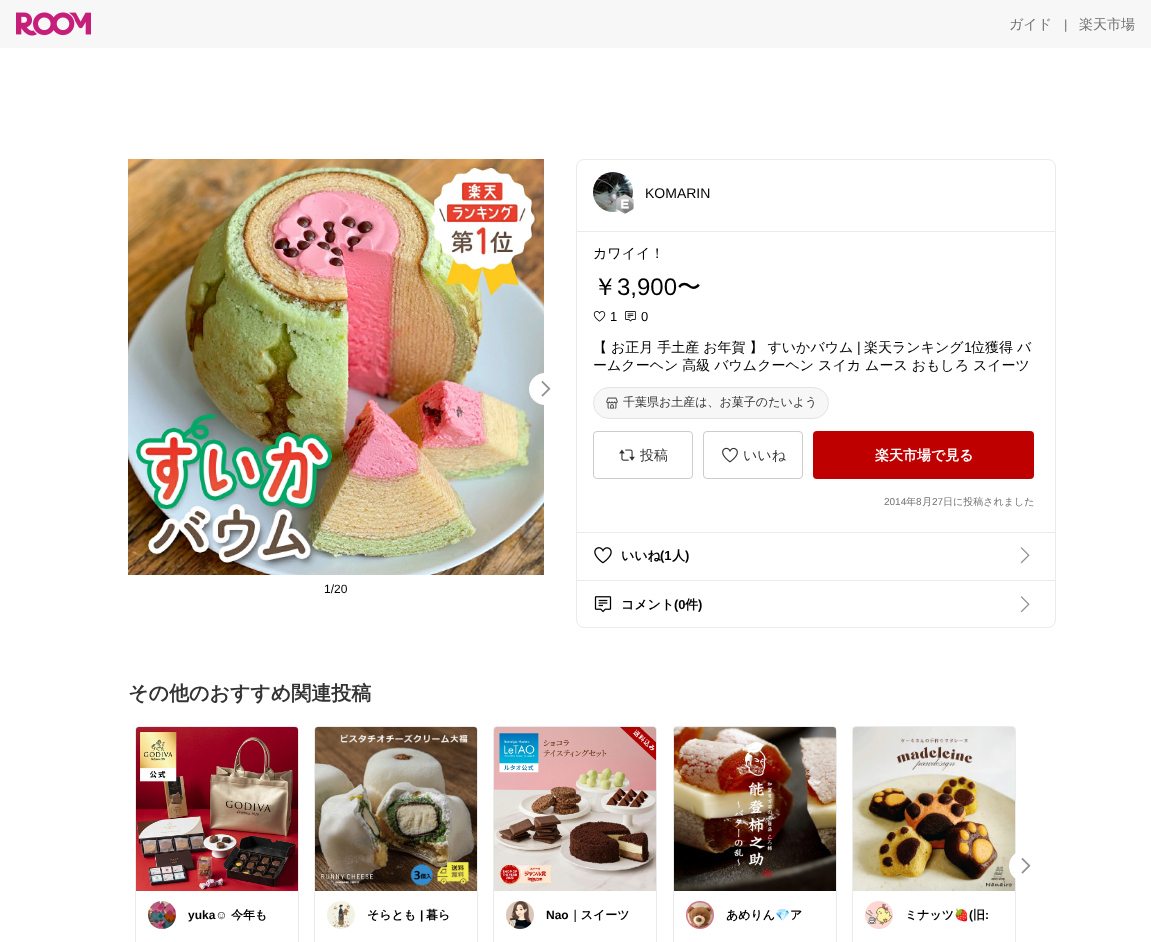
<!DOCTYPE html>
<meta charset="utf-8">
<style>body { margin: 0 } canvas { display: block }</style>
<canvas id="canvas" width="1151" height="942"></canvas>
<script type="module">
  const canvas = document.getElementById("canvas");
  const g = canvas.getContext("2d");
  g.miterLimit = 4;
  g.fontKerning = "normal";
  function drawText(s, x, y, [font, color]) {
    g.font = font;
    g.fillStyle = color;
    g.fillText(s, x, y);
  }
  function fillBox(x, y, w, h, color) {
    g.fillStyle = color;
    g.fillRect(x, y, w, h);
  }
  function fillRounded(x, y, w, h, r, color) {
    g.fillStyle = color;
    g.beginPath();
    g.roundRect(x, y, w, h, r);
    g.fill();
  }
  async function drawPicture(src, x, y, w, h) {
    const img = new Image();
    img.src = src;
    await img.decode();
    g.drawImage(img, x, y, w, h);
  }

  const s1 = ["500 14px WenQuanYi Zen Hei", "#717171"];
  const s2 = ["13px Liberation Sans", "#717171"];
  const s3 = ["12px Liberation Sans", "#000000"];
  const s4 = ["14px Liberation Sans", "#000000"];
  const s5 = ["500 14px WenQuanYi Zen Hei", "#000000"];
  const s6 = ["500 24px WenQuanYi Zen Hei", "#000000"];
  const s7 = ["24px Liberation Sans", "#000000"];
  const s8 = ["13px Liberation Sans", "#000000"];
  const s9 = ["500 12px WenQuanYi Zen Hei", "#333333"];
  const s10 = ["500 14px WenQuanYi Zen Hei", "#333333"];
  const s11 = ["bold 14px WenQuanYi Zen Hei", "#FFFFFF"];
  const s12 = ["10px Liberation Sans", "#717171"];
  const s13 = ["500 10px WenQuanYi Zen Hei", "#717171"];
  const s14 = ["bold 13px WenQuanYi Zen Hei", "#000000"];
  const s15 = ["bold 13px Liberation Sans", "#000000"];
  const s16 = ["bold 20px WenQuanYi Zen Hei", "#333333"];
  const s17 = ["bold 12px Liberation Sans", "#000000"];
  const s18 = ["bold 12px WenQuanYi Zen Hei", "#000000"];
  const s19 = ["bold 12px Noto Color Emoji", "#000000"];

  fillBox(0, 0, 1151, 942, "#FFFFFF");
  fillBox(0, 0, 1151, 48, "#F7F7F7");
  await drawPicture("pic1.png", 16, 12, 75, 24);
  drawText("ガイド", 1009, 29, s1);
  drawText("|", 1064, 29, s2);
  drawText("楽天市場", 1079, 29, s1);
  await drawPicture("pic2.png", 128, 159, 416, 416);
  g.fillStyle = "#FFFFFF";
  g.beginPath();
  g.arc(545, 389, 16, 0, Math.PI * 2);
  g.fill();
  await drawPicture("pic3.png", 541, 381, 10, 16);
  drawText("1/20", 324, 593, s3);
  g.beginPath();
  g.roundRect(576.5, 159.5, 479, 468, 7.5);
  g.strokeStyle = "#EBEBEB";
  g.stroke();
  fillBox(577, 231, 478, 1, "#EBEBEB");
  await drawPicture("pic4.png", 593, 172, 40, 40);
  await drawPicture("pic5.png", 616, 194, 18, 20);
  drawText("KOMARIN", 645, 198, s4);
  fillBox(577, 532, 478, 1, "#EBEBEB");
  drawText("カワイイ！", 593, 258, s5);
  drawText("￥", 593, 295, s6);
  drawText("3,900", 617, 295, s7);
  drawText("〜", 677, 295, s6);
  await drawPicture("pic6.png", 593, 311, 13, 11);
  drawText("1", 610, 321, s8);
  await drawPicture("pic7.png", 625, 311, 11, 11);
  drawText("0", 641, 321, s8);
  g.wordSpacing = "-0.25px";
  drawText("【 お正月 手土産 お年賀 】 すいかバウム", 593, 352, s5);
  g.wordSpacing = "0px";
  drawText("|", 857, 352, s4);
  drawText("楽天ランキング", 864, 352, s5);
  drawText("1", 964, 352, s4);
  g.wordSpacing = "-0.25px";
  drawText("位獲得 バ", 971, 352, s5);
  drawText("ームクーヘン 高級 バウムクーヘン スイカ ムース おもしろ スイーツ", 593, 370, s5);
  fillRounded(593, 387, 236, 32, 16, "#F7F7F7");
  g.beginPath();
  g.roundRect(593.5, 387.5, 235, 31, 15.5);
  g.strokeStyle = "rgba(0, 0, 0, 0.08)";
  g.stroke();
  await drawPicture("pic8.png", 606, 397, 12, 12);
  g.wordSpacing = "0px";
  drawText("千葉県お土産は、お菓子のたいよう", 623, 406, s9);
  g.beginPath();
  g.roundRect(593.5, 431.5, 99, 47, 3.5);
  g.strokeStyle = "#CCCCCC";
  g.stroke();
  await drawPicture("pic9.png", 619, 449, 16, 12);
  drawText("投稿", 640, 460, s10);
  g.beginPath();
  g.roundRect(703.5, 431.5, 99, 47, 3.5);
  g.stroke();
  await drawPicture("pic10.png", 722, 447, 16, 16);
  drawText("いいね", 743, 460, s10);
  fillRounded(813, 431, 221, 48, 4, "#BF0000");
  drawText("楽天市場で見る", 875, 460, s11);
  drawText("2014", 884, 505, s12);
  drawText("年", 906, 505, s13);
  drawText("8", 916, 505, s12);
  drawText("月", 922, 505, s13);
  drawText("27", 932, 505, s12);
  drawText("日に投稿されました", 943, 505, s13);
  fillBox(577, 580, 478, 1, "#EBEBEB");
  await drawPicture("pic11.png", 594, 547, 18, 17);
  drawText("いいね", 621, 560, s14);
  drawText("(1", 660, 560, s15);
  drawText("人", 672, 560, s14);
  drawText(")", 685, 560, s15);
  await drawPicture("pic12.png", 1020, 547, 10, 17);
  await drawPicture("pic13.png", 594, 596, 18, 17);
  drawText("コメント", 621, 609, s14);
  drawText("(0", 674, 609, s15);
  drawText("件", 685, 609, s14);
  drawText(")", 698, 609, s15);
  await drawPicture("pic12.png", 1020, 596, 10, 17);
  drawText("その他のおすすめ関連投稿", 128, 700, s16);
  g.beginPath();
  g.roundRect(852.5, 726.5, 163, 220, 3.5);
  g.strokeStyle = "#EBEBEB";
  g.stroke();
  await drawPicture("pic22.png", 853, 727, 162, 164);
  g.fillStyle = "#FFFFFF";
  g.beginPath();
  g.arc(1025, 866, 16, 0, Math.PI * 2);
  g.fill();
  await drawPicture("pic3.png", 1021, 858, 10, 16);
  g.beginPath();
  g.roundRect(135.5, 726.5, 163, 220, 3.5);
  g.stroke();
  await drawPicture("pic14.png", 136, 727, 162, 164);
  await drawPicture("pic15.png", 148, 901, 28, 28);
  drawText("yuka☺︎", 188, 919, s17);
  drawText("今年も", 231, 919, s18);
  g.beginPath();
  g.roundRect(314.5, 726.5, 163, 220, 3.5);
  g.stroke();
  await drawPicture("pic16.png", 315, 727, 162, 164);
  await drawPicture("pic17.png", 327, 901, 28, 28);
  drawText("そらとも", 367, 919, s18);
  drawText("|", 420, 919, s17);
  drawText("暮ら", 426, 919, s18);
  g.beginPath();
  g.roundRect(493.5, 726.5, 163, 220, 3.5);
  g.stroke();
  await drawPicture("pic18.png", 494, 727, 162, 164);
  await drawPicture("pic19.png", 506, 901, 28, 28);
  drawText("Nao", 546, 919, s17);
  drawText("｜スイーツ", 569, 919, s18);
  g.beginPath();
  g.roundRect(673.5, 726.5, 163, 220, 3.5);
  g.stroke();
  await drawPicture("pic20.png", 674, 727, 162, 164);
  await drawPicture("pic21.png", 686, 901, 28, 28);
  drawText("あめりん", 726, 919, s18);
  drawText("💎", 775, 919, s19);
  drawText("ア", 790, 919, s18);
  await drawPicture("pic23.png", 865, 901, 28, 28);
  drawText("ミナッツ", 905, 919, s18);
  drawText("🍓", 954, 919, s19);
  drawText("(", 969, 919, s17);
  drawText("旧", 973, 919, s18);
  drawText(":", 985, 919, s17);
</script>
